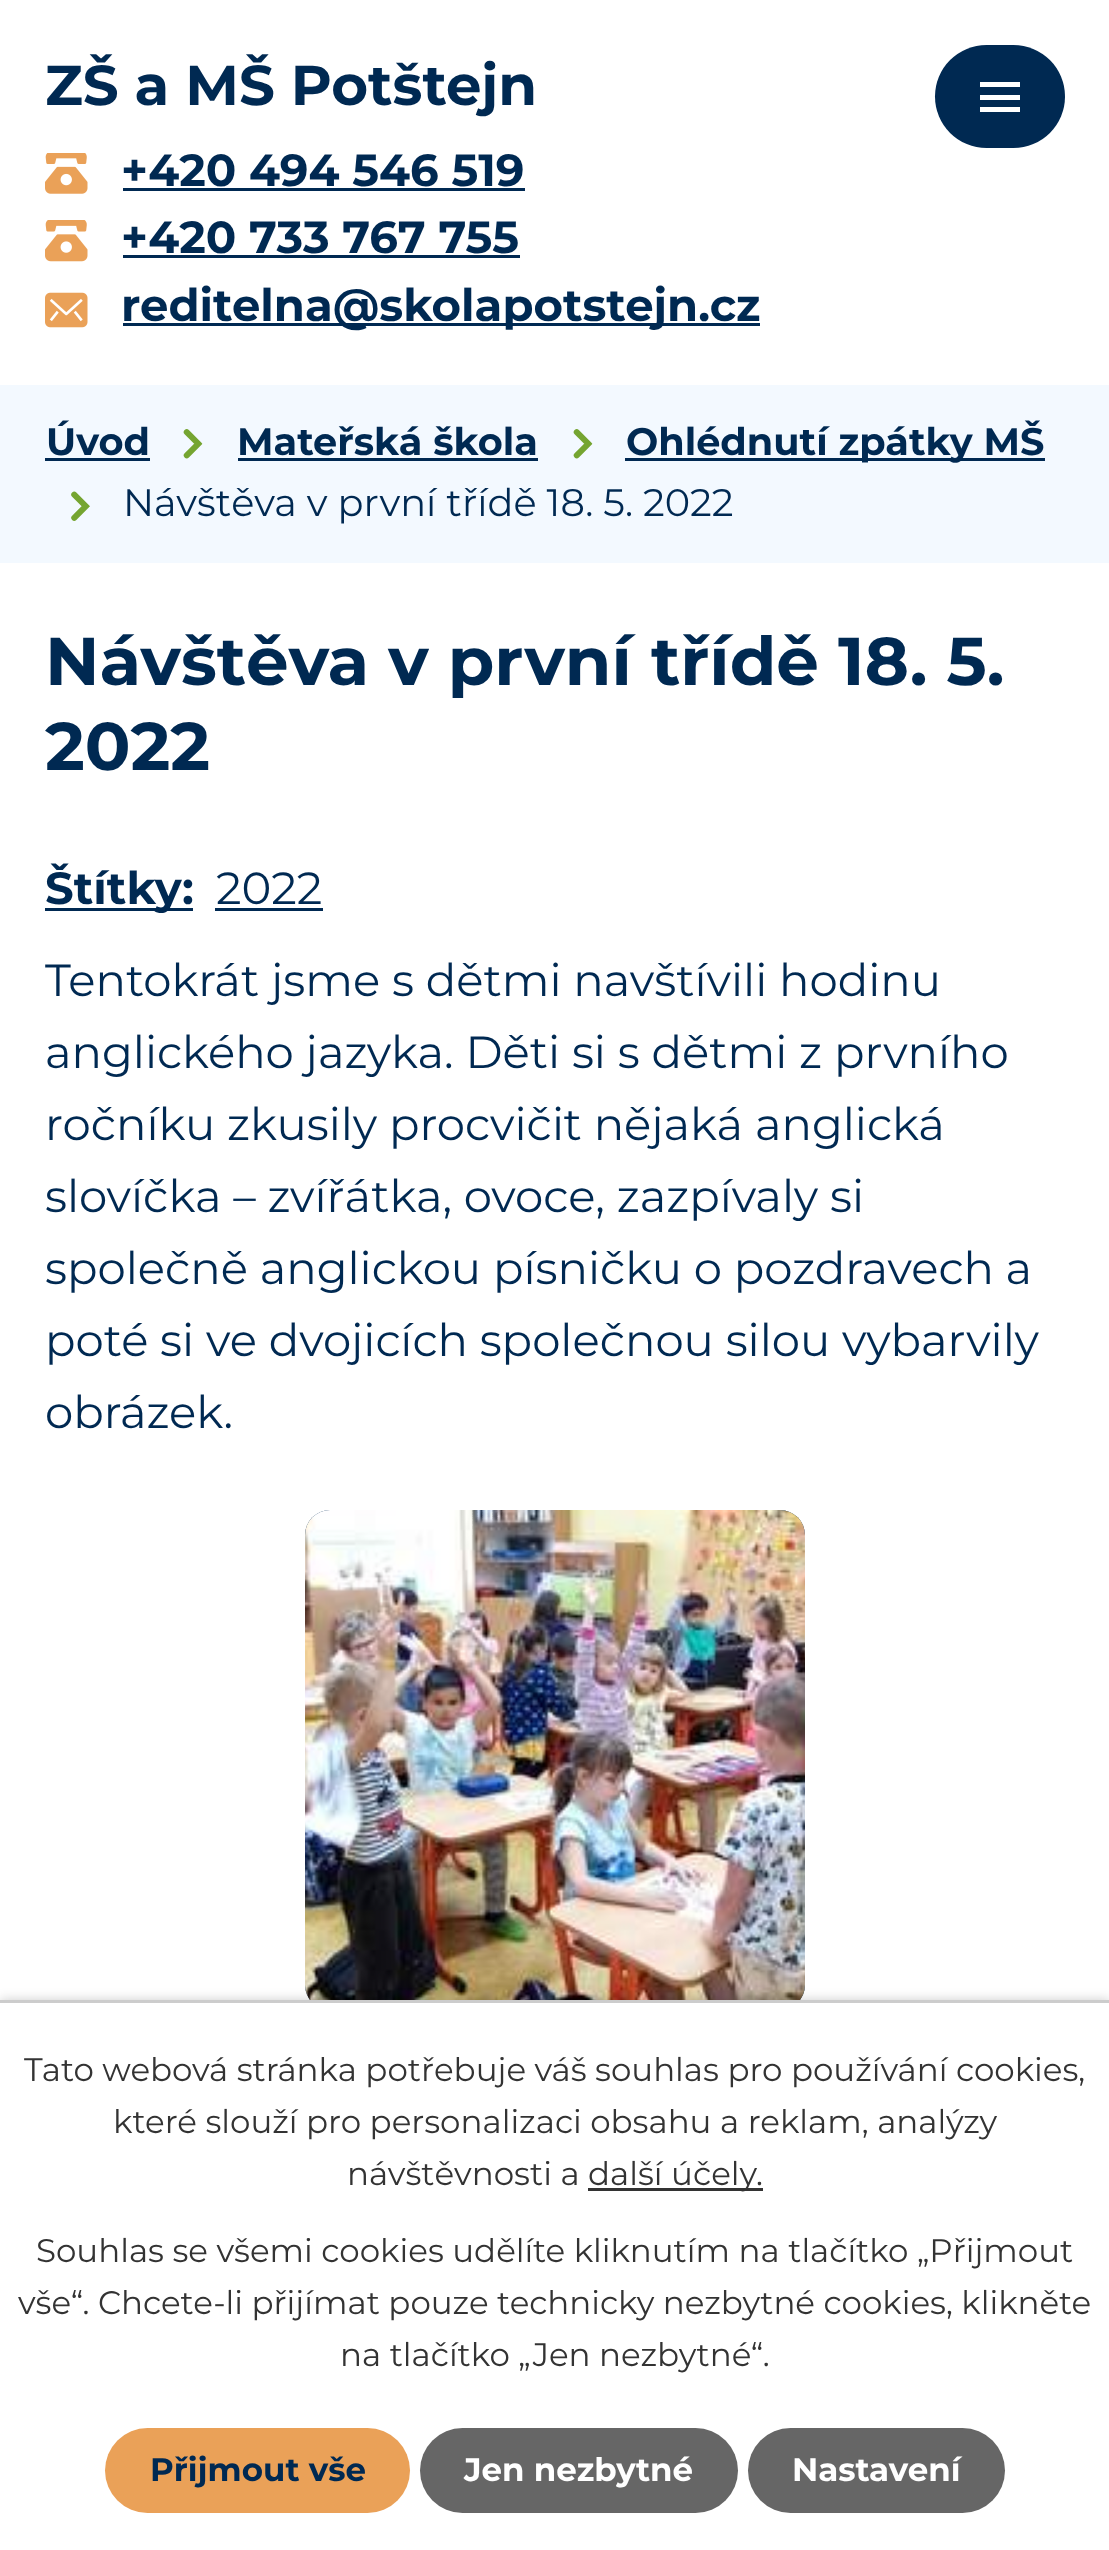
<!DOCTYPE html>
<meta charset="utf-8">
<style>body { margin: 0 } canvas { display: block }</style>
<canvas id="canvas" width="1109" height="2550"></canvas>
<script type="module">
  const canvas = document.getElementById("canvas");
  const g = canvas.getContext("2d");
  g.miterLimit = 4;
  g.fontKerning = "normal";
  function drawText(s, x, y, [font, color]) {
    g.font = font;
    g.fillStyle = color;
    g.fillText(s, x, y);
  }
  function fillBox(x, y, w, h, color) {
    g.fillStyle = color;
    g.fillRect(x, y, w, h);
  }
  function fillRounded(x, y, w, h, r, color) {
    g.fillStyle = color;
    g.beginPath();
    g.roundRect(x, y, w, h, r);
    g.fill();
  }
  async function drawPicture(src, x, y, w, h) {
    const img = new Image();
    img.src = src;
    await img.decode();
    g.drawImage(img, x, y, w, h);
  }

  const s1 = ["bold 56.25px Montserrat", "#002952"];
  const s2 = ["bold 45px Montserrat", "#002952"];
  const s3 = ["bold 38.25px Montserrat", "#002952"];
  const s4 = ["38.25px Montserrat", "#002952"];
  const s5 = ["bold 67.5px Montserrat", "#002952"];
  const s6 = ["45px Montserrat", "#002952"];
  const s7 = ["32.5px Montserrat", "#333333"];
  const s8 = ["bold 32.5px Montserrat", "#002952"];
  const s9 = ["bold 32.5px Montserrat", "#FFFFFF"];

  fillBox(0, 0, 1109, 2550, "#FFFFFF");
  drawText("ZŠ a MŠ Potštejn", 45, 105, s1);
  await drawPicture("pic1.png", 45, 153, 43, 41);
  drawText("+420 494 546 519", 121, 186, s2);
  fillBox(123, 188, 402, 3, "#002952");
  await drawPicture("pic2.png", 45, 220, 43, 42);
  drawText("+420 733 767 755", 121, 253, s2);
  fillBox(123, 255, 397, 3, "#002952");
  await drawPicture("pic3.png", 45, 292, 43, 36);
  fillBox(123, 323, 637, 3, "#002952");
  drawText("reditelna@skolapotstejn.cz", 121, 321, s2);
  fillRounded(935, 45, 130, 103, 51.5, "#002952");
  g.fillStyle = "#FFFFFF";
  g.beginPath();
  g.moveTo(980, 112);
  g.lineTo(980, 107);
  g.lineTo(1020, 107);
  g.lineTo(1020, 112);
  g.closePath();
  g.moveTo(980, 82);
  g.lineTo(1020, 82);
  g.lineTo(1020, 87);
  g.lineTo(980, 87);
  g.closePath();
  g.moveTo(980, 100);
  g.lineTo(980, 95);
  g.lineTo(1020, 95);
  g.lineTo(1020, 100);
  g.closePath();
  g.fill();
  fillBox(0, 385, 1109, 178, "#F3F9FF");
  drawText("Úvod", 46, 455, s3);
  fillBox(45, 458, 105, 3, "#002952");
  await drawPicture("pic4.png", 183, 429, 20, 30);
  drawText("Mateřská škola", 237, 455, s3);
  fillBox(238, 458, 300, 3, "#002952");
  await drawPicture("pic4.png", 573, 429, 20, 30);
  fillBox(625, 458, 420, 3, "#002952");
  drawText("Ohlédnutí zpátky MŠ", 626, 455, s3);
  await drawPicture("pic5.png", 71, 491, 19, 30);
  drawText("Návštěva v první třídě 18. 5. 2022", 123, 516, s4);
  drawText("Návštěva v první třídě 18. 5.", 45, 685, s5);
  drawText("2022", 45, 770, s5);
  fillBox(45, 908, 148, 3, "#002952");
  drawText("Štítky:", 45, 904, s2);
  drawText("2022", 216, 904, s6);
  fillBox(215, 908, 108, 3, "#002952");
  drawText("Tentokrát jsme s dětmi navštívili hodinu", 45, 996, s6);
  drawText("anglického jazyka. Děti si s dětmi z prvního", 45, 1068, s6);
  drawText("ročníku zkusily procvičit nějaká anglická", 45, 1140, s6);
  drawText("slovíčka – zvířátka, ovoce, zazpívaly si", 45, 1212, s6);
  drawText("společně anglickou písničku o pozdravech a", 45, 1284, s6);
  drawText("poté si ve dvojicích společnou silou vybarvily", 45, 1356, s6);
  drawText("obrázek.", 45, 1428, s6);
  fillRounded(305, 1510, 500, 500, 25, "#002952");
  await drawPicture("pic6.png", 305, 1510, 500, 490);
  g.fillStyle = "rgba(0, 0, 0, 0.2)";
  g.filter = "blur(6px)";
  g.beginPath();
  g.rect(0, 2000, 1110, 550);
  g.fill();
  g.filter = "none";
  fillBox(0, 2003, 1109, 547, "#FFFFFF");
  fillBox(0, 2000, 1109, 3, "#CCCCCC");
  drawText("Tato webová stránka potřebuje váš souhlas pro používání cookies,", 24, 2081, s7);
  drawText("které slouží pro personalizaci obsahu a reklam, analýzy", 113, 2133, s7);
  drawText("návštěvnosti a", 347, 2185, s7);
  fillBox(588, 2188, 175, 3, "#333333");
  drawText("další účely.", 588, 2185, s7);
  drawText("Souhlas se všemi cookies udělíte kliknutím na tlačítko „Přijmout", 36, 2262, s7);
  drawText("vše“. Chcete-li přijímat pouze technicky nezbytné cookies, klikněte", 18, 2314, s7);
  drawText("na tlačítko „Jen nezbytné“.", 340, 2366, s7);
  fillRounded(105, 2428, 305, 85, 42.5, "#EAA158");
  drawText("Přijmout vše", 150, 2481, s8);
  fillRounded(420, 2428, 318, 85, 42.5, "#666666");
  drawText("Jen nezbytné", 464, 2481, s9);
  fillRounded(748, 2428, 257, 85, 42.5, "#666666");
  drawText("Nastavení", 792, 2481, s9);
</script>
